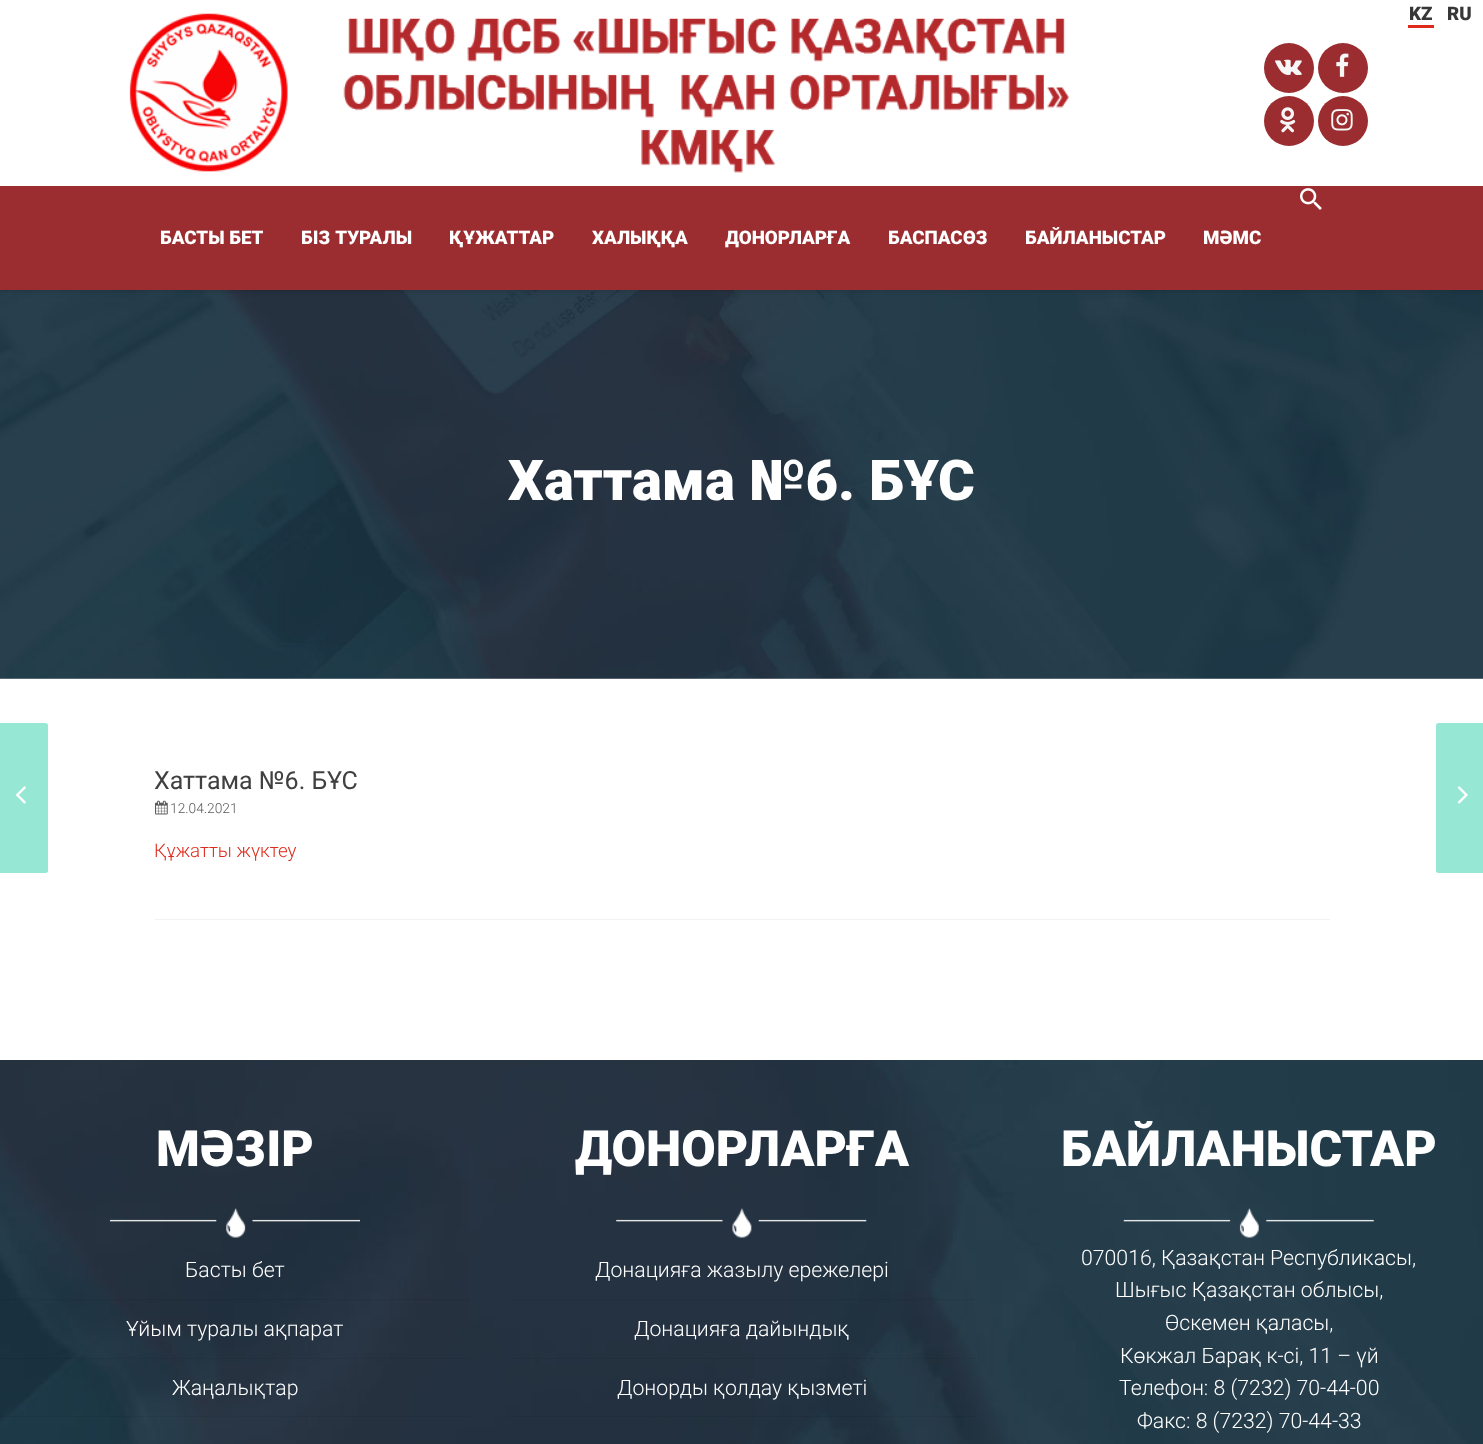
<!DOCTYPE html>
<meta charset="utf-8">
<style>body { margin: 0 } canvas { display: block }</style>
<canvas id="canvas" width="1483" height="1444"></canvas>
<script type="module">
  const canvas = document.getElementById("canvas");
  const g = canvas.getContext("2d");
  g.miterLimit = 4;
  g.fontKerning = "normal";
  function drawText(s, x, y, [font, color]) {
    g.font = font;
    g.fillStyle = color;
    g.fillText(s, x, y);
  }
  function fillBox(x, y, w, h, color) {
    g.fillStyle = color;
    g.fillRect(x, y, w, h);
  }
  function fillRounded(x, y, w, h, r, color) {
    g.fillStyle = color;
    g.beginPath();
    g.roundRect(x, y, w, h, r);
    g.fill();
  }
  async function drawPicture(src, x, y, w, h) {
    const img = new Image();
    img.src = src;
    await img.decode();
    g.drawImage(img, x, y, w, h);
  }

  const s1 = ["900 18.75px Roboto", "#373737"];
  const s2 = ["900 18.75px Roboto", "#FFFFFF"];
  const s3 = ["900 56.25px Roboto", "#FFFFFF"];
  const s4 = ["25px Roboto", "#404040"];
  const s5 = ["300 13.75px Roboto", "#5A5A5A"];
  const s6 = ["300 18.75px Roboto", "#DE2A1B"];
  const s7 = ["900 50px Roboto", "#FFFFFF"];
  const s8 = ["300 21.25px Roboto", "#FFFFFF"];

  fillBox(0, 0, 1483, 1444, "#FFFFFF");
  await drawPicture("pic7.png", 0, 290, 1483, 389);
  g.fillStyle = "rgba(0, 0, 0, 0.19)";
  g.filter = "blur(3px)";
  g.beginPath();
  g.rect(0, 0, 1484, 290);
  g.fill();
  g.filter = "none";
  fillBox(0, 0, 1483, 186, "#FFFFFF");
  await drawPicture("pic1.png", 129, 13, 940, 160);
  g.fillStyle = "#9B2D30";
  g.beginPath();
  g.arc(1289, 68, 25, 0, Math.PI * 2);
  g.fill();
  await drawPicture("pic2.png", 1275, 59, 27, 16);
  g.beginPath();
  g.arc(1343, 68, 25, 0, Math.PI * 2);
  g.fill();
  await drawPicture("pic3.png", 1336, 53, 13, 24);
  g.beginPath();
  g.arc(1289, 121, 25, 0, Math.PI * 2);
  g.fill();
  await drawPicture("pic4.png", 1280, 107, 16, 26);
  g.beginPath();
  g.arc(1343, 121, 25, 0, Math.PI * 2);
  g.fill();
  await drawPicture("pic5.png", 1331, 109, 22, 22);
  drawText("KZ", 1409, 20, s1);
  fillBox(1408, 25, 26, 3, "#DE2A1B");
  drawText("RU", 1447, 20, s1);
  fillBox(0, 186, 1483, 104, "#9B2D30");
  await drawPicture("pic6.png", 1300, 188, 22, 22);
  drawText("БАСТЫ БЕТ", 160, 244, s2);
  g.wordSpacing = "1px";
  drawText("БІЗ ТУРАЛЫ", 301, 244, s2);
  g.wordSpacing = "0px";
  drawText("ҚҰЖАТТАР", 449, 244, s2);
  drawText("ХАЛЫҚҚА", 592, 244, s2);
  drawText("ДОНОРЛАРҒА", 725, 244, s2);
  drawText("БАСПАСӨЗ", 888, 244, s2);
  drawText("БАЙЛАНЫСТАР", 1025, 244, s2);
  drawText("МӘМС", 1203, 244, s2);
  fillBox(0, 678, 1483, 1, "rgba(0, 0, 0, 0.03)");
  drawText("Хаттама №6. БҰС", 508, 500, s3);
  fillRounded(-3, 723, 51, 150, 2.5, "#96E7D4");
  await drawPicture("pic8.png", 15, 786, 11, 18);
  fillBox(155, 919, 1175, 1, "#F2F2F2");
  drawText("Хаттама №6. БҰС", 154, 789, s4);
  await drawPicture("pic9.png", 155, 800, 13, 15);
  drawText("12.04.2021", 170, 813, s5);
  drawText("Құжатты жүктеу", 154, 857, s6);
  fillRounded(1436, 723, 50, 150, 2.5, "#96E7D4");
  await drawPicture("pic10.png", 1457, 786, 11, 18);
  await drawPicture("pic11.png", 0, 1060, 1483, 384);
  drawText("МӘЗІР", 156, 1166, s7);
  await drawPicture("pic12.png", 110, 1208, 250, 30);
  fillBox(0, 1299, 470, 1, "rgba(0, 0, 0, 0.05)");
  drawText("Басты бет", 185, 1277, s8);
  fillBox(0, 1358, 470, 1, "rgba(0, 0, 0, 0.05)");
  drawText("Ұйым туралы ақпарат", 126, 1336, s8);
  fillBox(0, 1416, 470, 1, "rgba(0, 0, 0, 0.05)");
  drawText("Жаңалықтар", 172, 1395, s8);
  drawText("ДОНОРЛАРҒА", 575, 1166, s7);
  await drawPicture("pic13.png", 616, 1208, 251, 30);
  fillBox(508, 1299, 468, 1, "rgba(0, 0, 0, 0.05)");
  drawText("Донацияға жазылу ережелері", 595, 1277, s8);
  fillBox(508, 1358, 468, 1, "rgba(0, 0, 0, 0.05)");
  drawText("Донацияға дайындық", 634, 1336, s8);
  fillBox(508, 1416, 468, 1, "rgba(0, 0, 0, 0.05)");
  drawText("Донорды қолдау қызметі", 617, 1395, s8);
  drawText("БАЙЛАНЫСТАР", 1061, 1166, s7);
  await drawPicture("pic14.png", 1123, 1208, 251, 30);
  drawText("070016, Қазақстан Республикасы,", 1081, 1265, s8);
  drawText("Шығыс Қазақстан облысы,", 1115, 1297, s8);
  drawText("Өскемен қаласы,", 1165, 1330, s8);
  drawText("Көкжал Барақ к-сі, 11 – үй", 1120, 1363, s8);
  drawText("Телефон: 8 (7232) 70-44-00", 1119, 1395, s8);
  drawText("Факс: 8 (7232) 70-44-33", 1137, 1428, s8);
</script>
